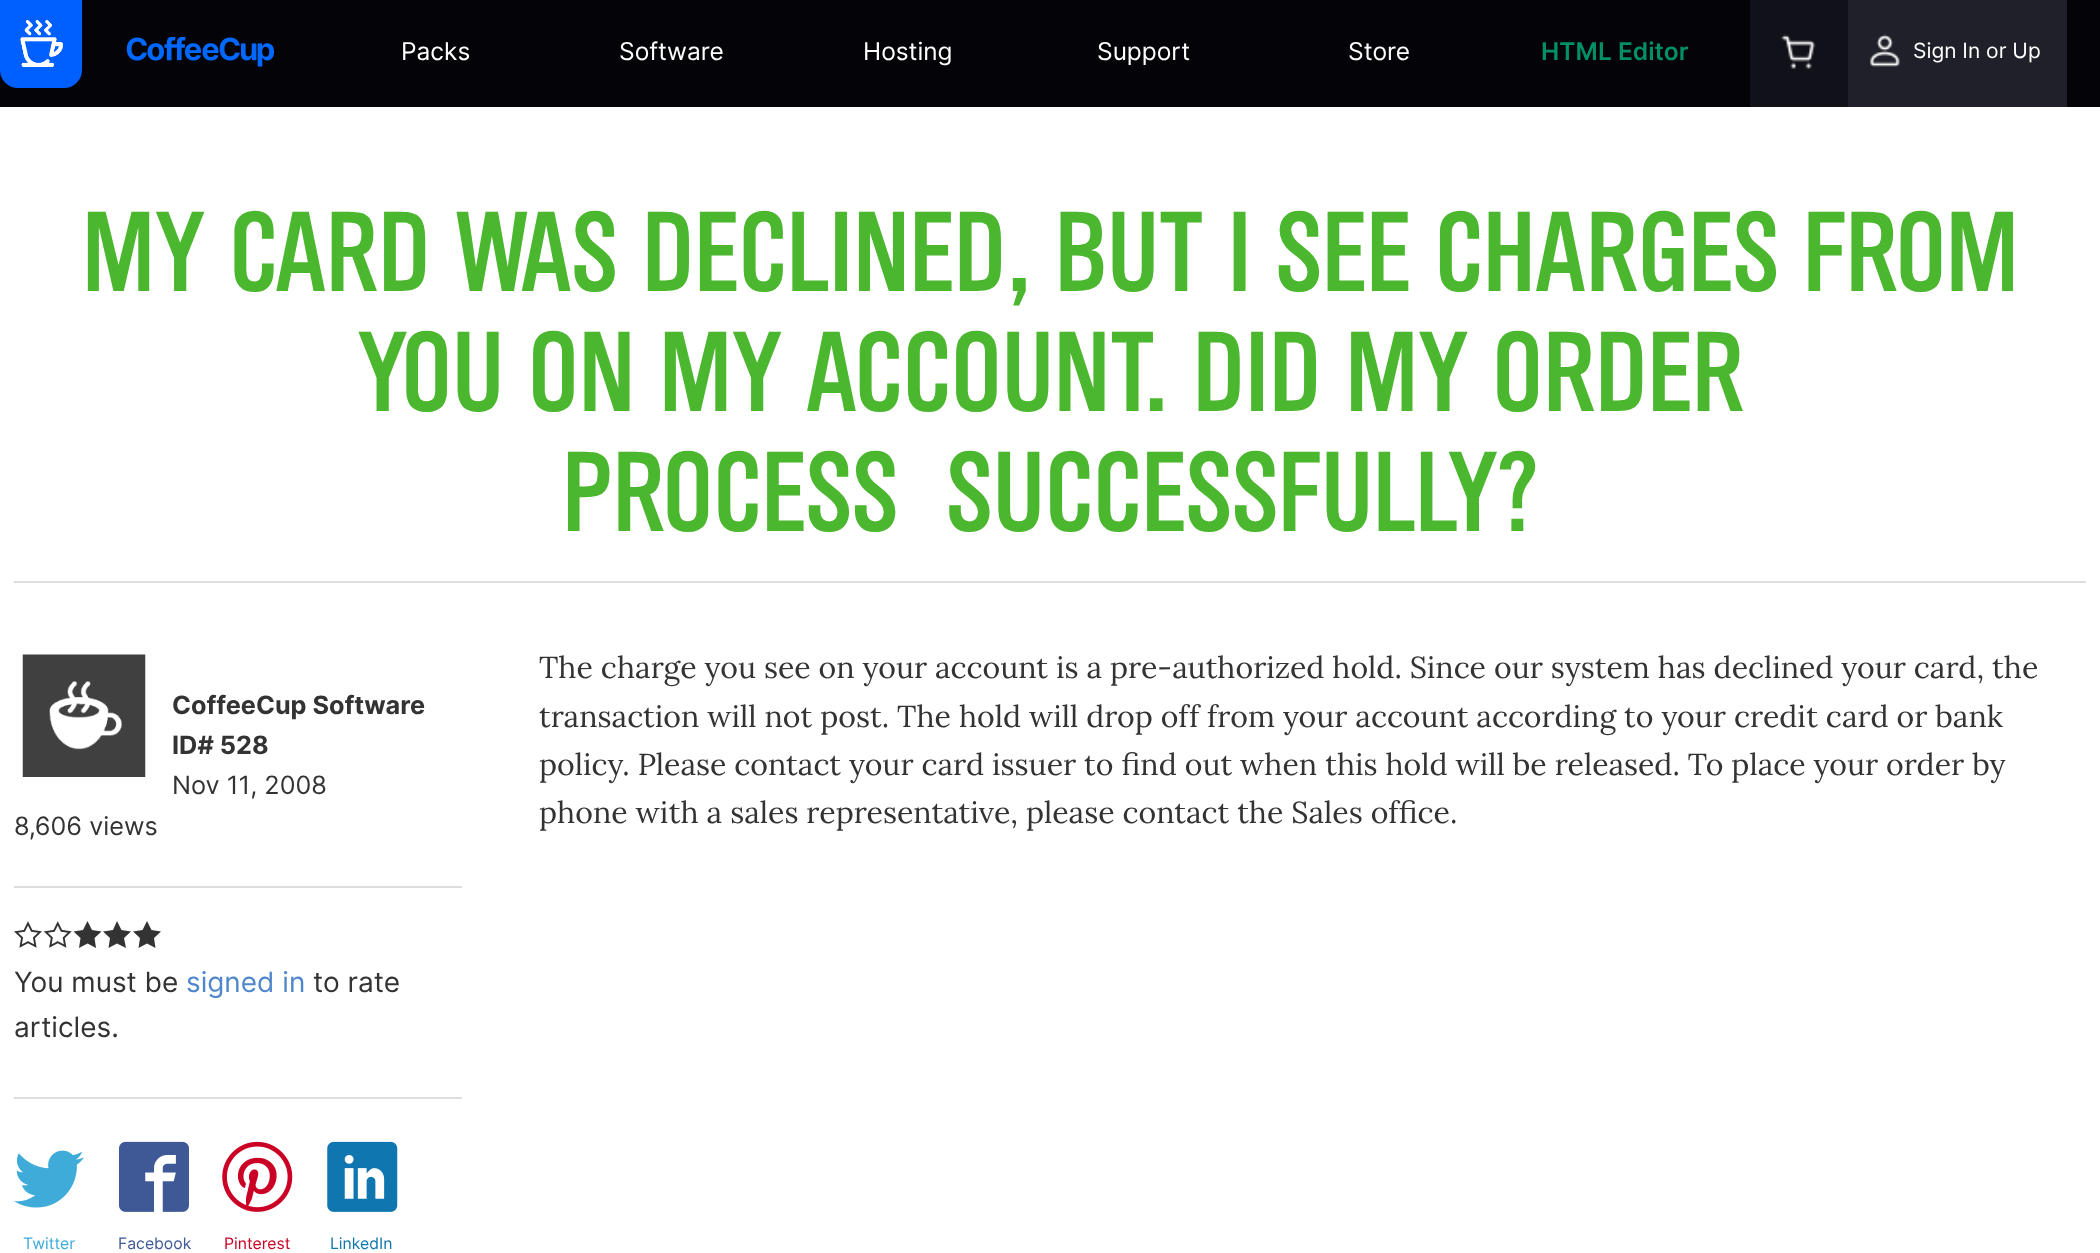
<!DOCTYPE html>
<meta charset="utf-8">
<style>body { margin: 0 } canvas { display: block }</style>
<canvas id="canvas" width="2100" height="1253"></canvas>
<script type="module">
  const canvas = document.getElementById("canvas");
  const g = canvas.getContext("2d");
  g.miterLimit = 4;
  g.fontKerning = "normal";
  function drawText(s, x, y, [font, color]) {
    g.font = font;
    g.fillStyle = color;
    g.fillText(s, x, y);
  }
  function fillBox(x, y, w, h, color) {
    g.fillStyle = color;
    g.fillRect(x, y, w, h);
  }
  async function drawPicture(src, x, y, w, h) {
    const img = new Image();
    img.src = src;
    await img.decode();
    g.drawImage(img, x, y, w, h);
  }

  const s1 = ["24.5px Inter", "#FFFFFF"];
  const s2 = ["600 24.5px Inter", "#009064"];
  const s3 = ["21px Inter", "#FFFFFF"];
  const s4 = ["500 108.75px 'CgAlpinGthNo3'", "#4AB72E"];
  const s5 = ["bold 25.25px Inter", "#333333"];
  const s6 = ["25.25px Inter", "#333333"];
  const s7 = ["28px Inter", "#333333"];
  const s8 = ["28px Inter", "#5087CA"];
  const s9 = ["15.75px Inter", "#3EABD9"];
  const s10 = ["15.75px Inter", "#3E5996"];
  const s11 = ["15.75px Inter", "#CA0024"];
  const s12 = ["15.75px Inter", "#1076AF"];
  const s13 = ["30.25px Lora", "#333333"];

  fillBox(0, 0, 2100, 1253, "#FFFFFF");
  fillBox(0, 0, 2100, 107, "#030308");
  g.fillStyle = "#005FFF";
  g.beginPath();
  g.roundRect(0, 0, 82, 88, [0, 0, 18, 18]);
  g.fill();
  await drawPicture("pic1.png", 20, 20, 43, 47);
  await drawPicture("pic2.png", 126, 37, 148, 30);
  drawText("Packs", 401, 60, s1);
  drawText("Software", 619, 60, s1);
  drawText("Hosting", 863, 60, s1);
  drawText("Support", 1097, 60, s1);
  drawText("Store", 1348, 60, s1);
  drawText("HTML Editor", 1541, 60, s2);
  fillBox(1750, 0, 98, 107, "#11111A");
  await drawPicture("pic3.png", 1781, 34, 35, 35);
  fillBox(1848, 0, 219, 107, "#20202A");
  await drawPicture("pic4.png", 1870, 34, 30, 33);
  drawText("Sign In or Up", 1913, 58, s3);
  drawText("MY CARD WAS DECLINED, BUT I SEE CHARGES FROM", 82, 291, s4);
  drawText("YOU ON MY ACCOUNT. DID MY ORDER", 357, 411, s4);
  drawText("PROCESS", 562, 531, s4);
  drawText("SUCCESSFULLY?", 946, 531, s4);
  fillBox(14, 581, 2072, 2, "#DDDDDD");
  await drawPicture("pic5.png", 22, 654, 124, 123);
  drawText("CoffeeCup Software", 172, 714, s5);
  drawText("ID# 528", 172, 754, s5);
  drawText("Nov 11, 2008", 172, 794, s6);
  drawText("8,606 views", 14, 835, s6);
  fillBox(14, 886, 448, 2, "#DDDDDD");
  await drawPicture("pic6.png", 14, 921, 28, 27);
  await drawPicture("pic7.png", 43, 921, 29, 27);
  g.fillStyle = "#333333";
  g.beginPath();
  g.moveTo(101.5, 931.5);
  g.lineTo(92, 930);
  g.lineTo(87.5, 921);
  g.lineTo(83, 930);
  g.lineTo(73.5, 931.5);
  g.lineTo(80.5, 938);
  g.lineTo(79, 948);
  g.lineTo(87.5, 943.5);
  g.lineTo(96, 948);
  g.lineTo(94.5, 938);
  g.closePath();
  g.moveTo(131, 931.5);
  g.lineTo(121.5, 930);
  g.lineTo(117, 921);
  g.lineTo(113, 930);
  g.lineTo(103, 931.5);
  g.lineTo(110, 938);
  g.lineTo(108.5, 948);
  g.lineTo(117, 943.5);
  g.lineTo(126, 948);
  g.lineTo(124, 938);
  g.closePath();
  g.fill();
  g.beginPath();
  g.moveTo(161, 931.5);
  g.lineTo(151.5, 930);
  g.lineTo(147, 921);
  g.lineTo(142.5, 930);
  g.lineTo(133, 931.5);
  g.lineTo(140, 938);
  g.lineTo(138.5, 948);
  g.lineTo(147, 943.5);
  g.lineTo(155.5, 948);
  g.lineTo(154, 938);
  g.closePath();
  g.fill();
  drawText("You must be", 14, 992, s7);
  drawText("signed in", 186, 992, s8);
  drawText("to rate", 313, 992, s7);
  drawText("articles.", 14, 1037, s7);
  fillBox(14, 1097, 448, 2, "#DDDDDD");
  await drawPicture("pic8.png", 14, 1150, 70, 58);
  drawText("Twitter", 23, 1249, s9);
  await drawPicture("pic9.png", 119, 1141, 70, 71);
  drawText("Facebook", 118, 1249, s10);
  await drawPicture("pic10.png", 222, 1141, 71, 71);
  drawText("Pinterest", 224, 1249, s11);
  await drawPicture("pic11.png", 327, 1141, 71, 71);
  drawText("LinkedIn", 330, 1249, s12);
  drawText("The charge you see on your account is a pre-authorized hold. Since our system has declined your card, the", 539, 678, s13);
  drawText("transaction will not post. The hold will drop off from your account according to your credit card or bank", 539, 727, s13);
  drawText("policy. Please contact your card issuer to find out when this hold will be released. To place your order by", 539, 775, s13);
  drawText("phone with a sales representative, please contact the Sales office.", 539, 823, s13);
</script>
